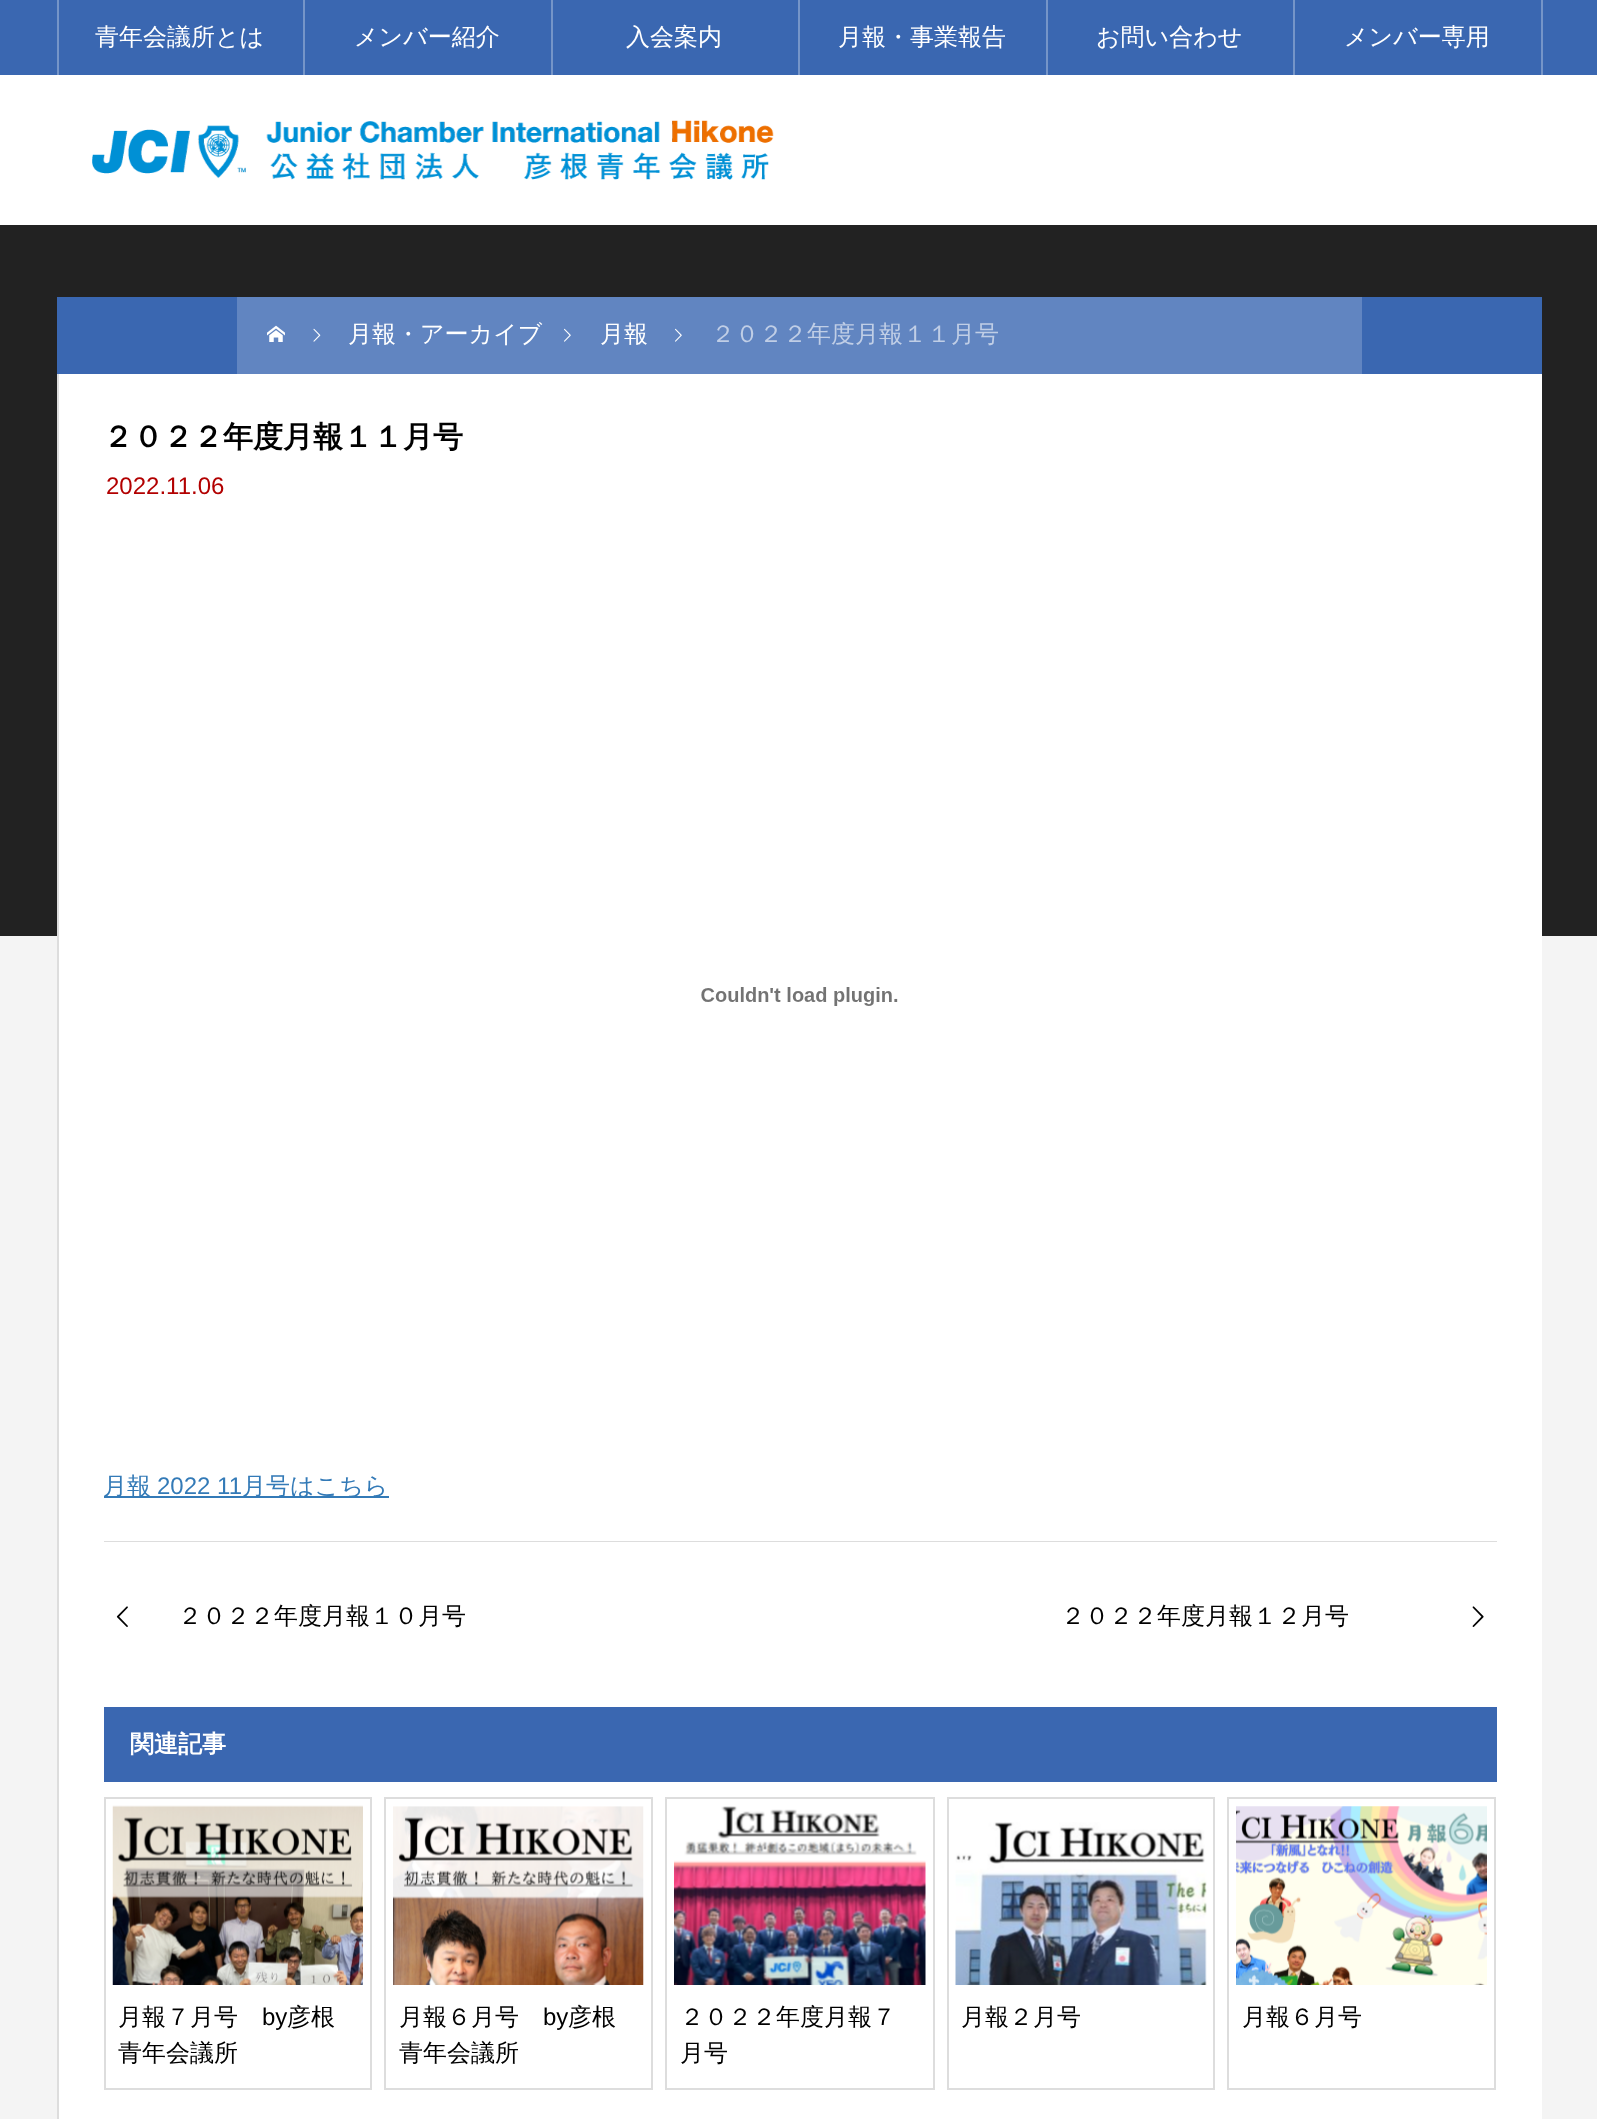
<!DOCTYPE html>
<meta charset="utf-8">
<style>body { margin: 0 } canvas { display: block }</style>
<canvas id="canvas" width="1597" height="2119"></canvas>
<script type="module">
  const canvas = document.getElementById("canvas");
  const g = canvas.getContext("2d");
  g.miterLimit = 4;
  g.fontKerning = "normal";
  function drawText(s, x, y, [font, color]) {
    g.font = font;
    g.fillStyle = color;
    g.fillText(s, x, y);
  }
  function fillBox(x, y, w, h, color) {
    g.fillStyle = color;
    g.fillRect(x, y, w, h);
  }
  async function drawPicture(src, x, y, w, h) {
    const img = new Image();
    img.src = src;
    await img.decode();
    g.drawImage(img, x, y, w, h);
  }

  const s1 = ["500 24px WenQuanYi Zen Hei", "#FFFFFF"];
  const s2 = ["500 24px WenQuanYi Zen Hei", "#C0CEE6"];
  const s3 = ["bold 30px WenQuanYi Zen Hei", "#000000"];
  const s4 = ["24px Liberation Sans", "#B20000"];
  const s5 = ["500 24px WenQuanYi Zen Hei", "#337AB7"];
  const s6 = ["24px Liberation Sans", "#337AB7"];
  const s7 = ["500 24px WenQuanYi Zen Hei", "#000000"];
  const s8 = ["bold 24px WenQuanYi Zen Hei", "#FFFFFF"];
  const s9 = ["24px Liberation Sans", "#000000"];

  fillBox(0, 0, 1597, 2119, "#F4F4F4");
  fillBox(0, 75, 1597, 150, "#FFFFFF");
  fillBox(0, 0, 1597, 75, "#3A67B1");
  fillBox(303, 0, 2, 75, "#7595C8");
  fillBox(57, 0, 2, 75, "#7595C8");
  drawText("青年会議所とは", 95, 45, s1);
  fillBox(551, 0, 2, 75, "#7595C8");
  drawText("メンバー紹介", 354, 45, s1);
  fillBox(798, 0, 2, 75, "#7595C8");
  drawText("入会案内", 626, 45, s1);
  fillBox(1046, 0, 2, 75, "#7595C8");
  drawText("月報・事業報告", 838, 45, s1);
  fillBox(1293, 0, 2, 75, "#7595C8");
  drawText("お問い合わせ", 1096, 45, s1);
  fillBox(1541, 0, 2, 75, "#7595C8");
  drawText("メンバー専用", 1344, 45, s1);
  await drawPicture("pic1.png", 92, 120, 682, 60);
  fillBox(0, 225, 1597, 711, "#222222");
  fillBox(59, 374, 1483, 1745, "#FFFFFF");
  fillBox(57, 372, 2, 1747, "#DDDDDD");
  fillBox(57, 297, 1485, 77, "#3A67B1");
  fillBox(237, 297, 1125, 77, "#6185C1");
  await drawPicture("pic2.png", 267, 325, 18, 17);
  await drawPicture("pic3.png", 313, 328, 8, 14);
  drawText("月報・アーカイブ", 348, 342, s1);
  await drawPicture("pic4.png", 564, 328, 7, 14);
  drawText("月報", 600, 342, s1);
  await drawPicture("pic4.png", 675, 328, 7, 14);
  drawText("２０２２年度月報１１月号", 711, 342, s2);
  drawText("２０２２年度月報１１月号", 103, 447, s3);
  drawText("2022.11.06", 106, 494, s4);
  await drawPicture("pic5.png", 701, 987, 197, 19);
  fillBox(104, 1496, 285, 2, "#337AB7");
  drawText("月報", 103, 1494, s5);
  drawText("2022 11", 157, 1494, s6);
  drawText("月号はこちら", 242, 1494, s5);
  fillBox(104, 1541, 1393, 1, "#DDDDDD");
  await drawPicture("pic6.png", 116, 1606, 12, 21);
  drawText("２０２２年度月報１０月号", 178, 1624, s7);
  drawText("２０２２年度月報１２月号", 1061, 1624, s7);
  await drawPicture("pic7.png", 1472, 1606, 12, 21);
  fillBox(104, 1707, 1393, 75, "#3A67B1");
  drawText("関連記事", 130, 1752, s8);
  g.strokeStyle = "#DDDDDD";
  g.lineWidth = 2;
  g.strokeRect(105, 1798, 266, 291);
  await drawPicture("pic8.png", 112, 1805, 251, 180);
  drawText("月報７月号", 118, 2025, s7);
  drawText("by", 262, 2025, s9);
  drawText("彦根", 287, 2025, s7);
  drawText("青年会議所", 118, 2061, s7);
  g.strokeRect(385, 1798, 267, 291);
  await drawPicture("pic9.png", 393, 1806, 251, 179);
  drawText("月報６月号", 399, 2025, s7);
  drawText("by", 543, 2025, s9);
  drawText("彦根", 568, 2025, s7);
  drawText("青年会議所", 399, 2061, s7);
  g.strokeRect(666, 1798, 268, 291);
  await drawPicture("pic10.png", 674, 1806, 252, 179);
  drawText("２０２２年度月報７", 680, 2025, s7);
  drawText("月号", 680, 2061, s7);
  g.strokeRect(948, 1798, 266, 291);
  await drawPicture("pic11.png", 955, 1822, 252, 163);
  drawText("月報２月号", 961, 2025, s7);
  g.strokeRect(1228, 1798, 267, 291);
  await drawPicture("pic12.png", 1236, 1806, 251, 179);
  drawText("月報６月号", 1242, 2025, s7);
</script>
